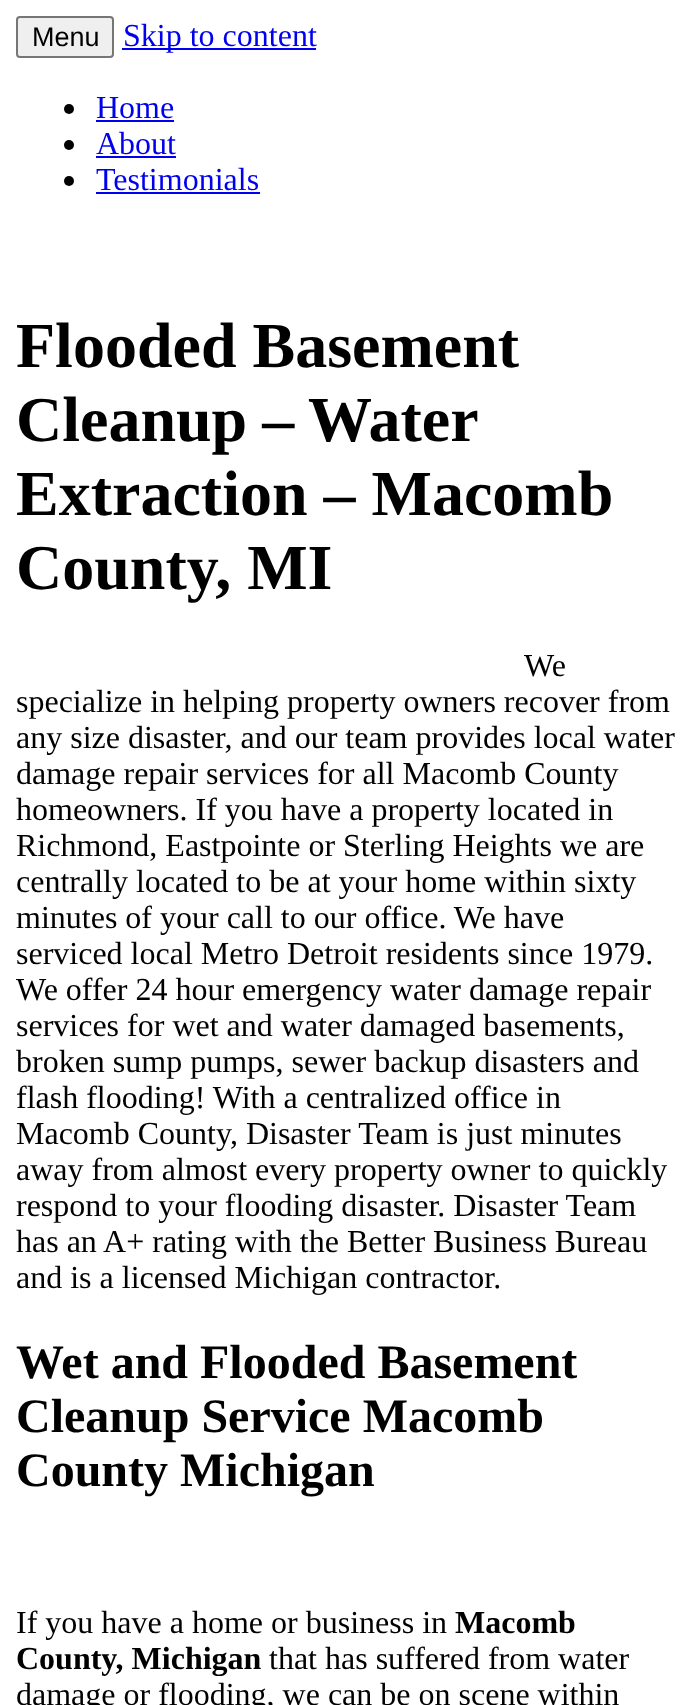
<!DOCTYPE html>
<meta charset="utf-8">
<style>body { margin: 0 } canvas { display: block }</style>
<canvas id="canvas" width="693" height="1705"></canvas>
<script type="module">
  const canvas = document.getElementById("canvas");
  const g = canvas.getContext("2d");
  g.miterLimit = 4;
  g.fontKerning = "normal";
  function drawText(s, x, y, [font, color]) {
    g.font = font;
    g.fillStyle = color;
    g.fillText(s, x, y);
  }
  function fillBox(x, y, w, h, color) {
    g.fillStyle = color;
    g.fillRect(x, y, w, h);
  }

  const s1 = ["27px Liberation Sans", "#000000"];
  const s2 = ["32px Liberation Serif", "#0000EE"];
  const s3 = ["bold 64px Liberation Serif", "#000000"];
  const s4 = ["32px Liberation Serif", "#000000"];
  const s5 = ["bold 48px Liberation Serif", "#000000"];
  const s6 = ["bold 32px Liberation Serif", "#000000"];

  fillBox(0, 0, 693, 1705, "#FFFFFF");
  g.fillStyle = "#EFEFEF";
  g.beginPath();
  g.roundRect(17, 17, 96, 40, 3);
  g.fill();
  g.strokeStyle = "#767676";
  g.lineWidth = 2;
  g.stroke();
  drawText("Menu", 32, 46, s1);
  fillBox(122, 48, 194, 2, "#0000EE");
  drawText("Skip to content", 123, 46, s2);
  g.fillStyle = "#000000";
  g.beginPath();
  g.arc(69, 109, 5, 0, Math.PI * 2);
  g.fill();
  drawText("Home", 96, 118, s2);
  fillBox(96, 120, 78, 2, "#0000EE");
  g.fillStyle = "#000000";
  g.beginPath();
  g.arc(69, 145, 5, 0, Math.PI * 2);
  g.fill();
  drawText("About", 96, 154, s2);
  fillBox(96, 156, 80, 2, "#0000EE");
  g.fillStyle = "#000000";
  g.beginPath();
  g.arc(69, 181, 5, 0, Math.PI * 2);
  g.fill();
  drawText("Testimonials", 96, 190, s2);
  fillBox(96, 192, 164, 2, "#0000EE");
  drawText("Flooded Basement", 16, 367, s3);
  g.wordSpacing = "-1px";
  drawText("Cleanup – Water", 16, 441, s3);
  g.wordSpacing = "0px";
  drawText("Extraction – Macomb", 16, 515, s3);
  drawText("County, MI", 16, 589, s3);
  drawText("We", 524, 676, s4);
  drawText("specialize in helping property owners recover from", 16, 712, s4);
  drawText("any size disaster, and our team provides local water", 16, 748, s4);
  drawText("damage repair services for all Macomb County", 16, 784, s4);
  drawText("homeowners. If you have a property located in", 16, 820, s4);
  drawText("Richmond, Eastpointe or Sterling Heights we are", 16, 856, s4);
  drawText("centrally located to be at your home within sixty", 16, 892, s4);
  drawText("minutes of your call to our office. We have", 16, 928, s4);
  drawText("serviced local Metro Detroit residents since 1979.", 16, 964, s4);
  drawText("We offer 24 hour emergency water damage repair", 16, 1000, s4);
  drawText("services for wet and water damaged basements,", 16, 1036, s4);
  drawText("broken sump pumps, sewer backup disasters and", 16, 1072, s4);
  drawText("flash flooding! With a centralized office in", 16, 1108, s4);
  drawText("Macomb County, Disaster Team is just minutes", 16, 1144, s4);
  drawText("away from almost every property owner to quickly", 16, 1180, s4);
  drawText("respond to your flooding disaster. Disaster Team", 16, 1216, s4);
  drawText("has an A+ rating with the Better Business Bureau", 16, 1252, s4);
  drawText("and is a licensed Michigan contractor.", 16, 1288, s4);
  drawText("Wet and Flooded Basement", 16, 1378, s5);
  drawText("Cleanup Service Macomb", 16, 1432, s5);
  drawText("County Michigan", 16, 1486, s5);
  drawText("If you have a home or business in", 16, 1633, s4);
  drawText("Macomb", 455, 1633, s6);
  drawText("County, Michigan", 16, 1669, s6);
  drawText("that has suffered from water", 269, 1669, s4);
  drawText("damage or flooding, we can be on scene within", 16, 1705, s4);
</script>
